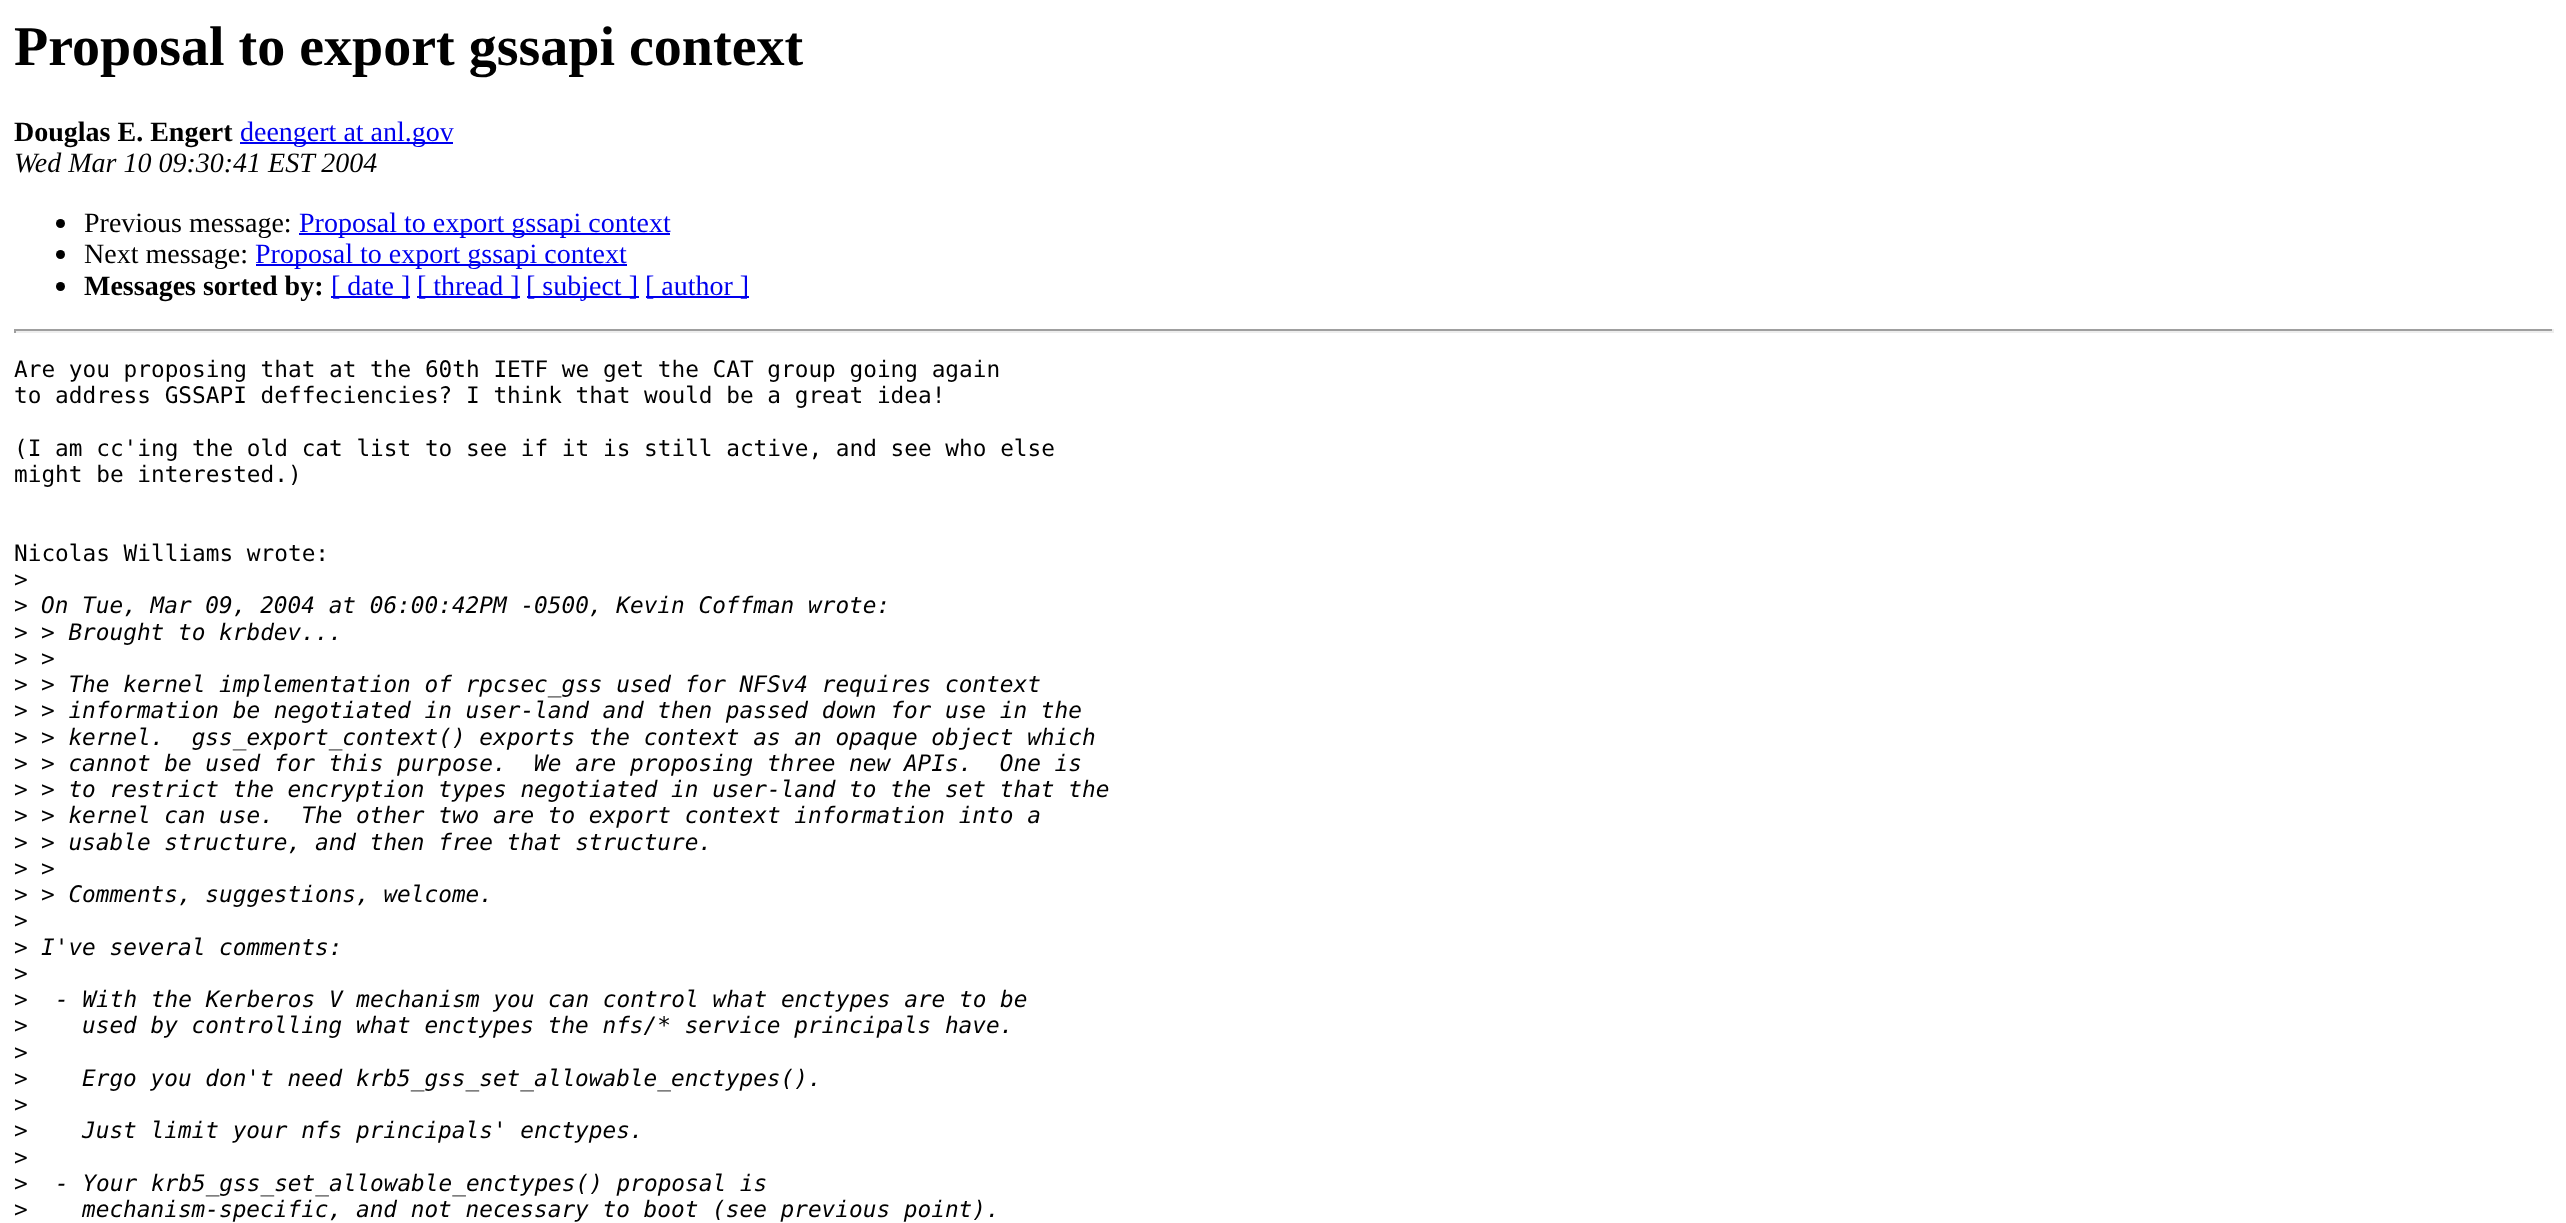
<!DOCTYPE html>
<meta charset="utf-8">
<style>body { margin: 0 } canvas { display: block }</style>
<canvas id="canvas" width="2566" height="1223"></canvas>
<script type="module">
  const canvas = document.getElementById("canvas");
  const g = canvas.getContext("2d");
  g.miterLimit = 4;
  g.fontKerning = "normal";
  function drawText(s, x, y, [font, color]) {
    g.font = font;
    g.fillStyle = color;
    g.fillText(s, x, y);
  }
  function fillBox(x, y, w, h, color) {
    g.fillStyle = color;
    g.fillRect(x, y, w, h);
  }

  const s1 = ["bold 56px Liberation Serif", "#000000"];
  const s2 = ["bold 28px Liberation Serif", "#000000"];
  const s3 = ["28px Liberation Serif", "#0000EE"];
  const s4 = ["italic 28px Liberation Serif", "#000000"];
  const s5 = ["28px Liberation Serif", "#000000"];
  const s6 = ["22.75px DejaVu Sans Mono", "#000000"];
  const s7 = ["italic 22.75px DejaVu Sans Mono", "#000000"];

  fillBox(0, 0, 2566, 1223, "#FFFFFF");
  drawText("Proposal to export gssapi context", 14, 65, s1);
  drawText("Douglas E. Engert", 14, 141, s2);
  fillBox(240, 142, 213, 2, "#0000EE");
  drawText("deengert at anl.gov", 240, 141, s3);
  drawText("Wed Mar 10 09:30:41 EST 2004", 14, 172, s4);
  g.beginPath();
  g.arc(60.5, 223.5, 4.5, 0, Math.PI * 2);
  g.fill();
  drawText("Previous message:", 84, 232, s5);
  fillBox(299, 233, 371, 2, "#0000EE");
  drawText("Proposal to export gssapi context", 299, 232, s3);
  g.fillStyle = "#000000";
  g.beginPath();
  g.arc(60.5, 254.5, 4.5, 0, Math.PI * 2);
  g.fill();
  drawText("Next message:", 84, 263, s5);
  fillBox(256, 264, 371, 2, "#0000EE");
  drawText("Proposal to export gssapi context", 255, 263, s3);
  g.fillStyle = "#000000";
  g.beginPath();
  g.arc(60.5, 286.5, 4.5, 0, Math.PI * 2);
  g.fill();
  drawText("Messages sorted by:", 84, 295, s2);
  fillBox(331, 296, 79, 2, "#0000EE");
  drawText("[ date ]", 331, 295, s3);
  fillBox(417, 296, 103, 2, "#0000EE");
  drawText("[ thread ]", 417, 295, s3);
  fillBox(527, 296, 112, 2, "#0000EE");
  drawText("[ subject ]", 526, 295, s3);
  fillBox(646, 296, 103, 2, "#0000EE");
  drawText("[ author ]", 645, 295, s3);
  fillBox(14, 329, 2539, 2, "#9F9F9F");
  fillBox(2552, 329, 2, 4, "#EEEEEE");
  fillBox(14, 331, 2539, 2, "#EEEEEE");
  fillBox(14, 329, 2, 4, "#9F9F9F");
  drawText("Are you proposing that at the 60th IETF we get the CAT group going again", 14, 377, s6);
  drawText("to address GSSAPI deffeciencies? I think that would be a great idea!", 14, 403, s6);
  drawText("(I am cc'ing the old cat list to see if it is still active, and see who else", 14, 456, s6);
  drawText("might be interested.)", 14, 482, s6);
  drawText("Nicolas Williams wrote:", 14, 561, s6);
  drawText(">", 14, 587, s6);
  drawText(">", 14, 613, s6);
  drawText("On Tue, Mar 09, 2004 at 06:00:42PM -0500, Kevin Coffman wrote:", 41, 613, s7);
  drawText(">", 14, 640, s6);
  drawText("> Brought to krbdev...", 41, 640, s7);
  drawText(">", 14, 666, s6);
  drawText(">", 41, 666, s7);
  drawText(">", 14, 692, s6);
  drawText("> The kernel implementation of rpcsec_gss used for NFSv4 requires context", 41, 692, s7);
  drawText(">", 14, 718, s6);
  drawText("> information be negotiated in user-land and then passed down for use in the", 41, 718, s7);
  drawText(">", 14, 745, s6);
  drawText("> kernel.  gss_export_context() exports the context as an opaque object which", 41, 745, s7);
  drawText(">", 14, 771, s6);
  drawText("> cannot be used for this purpose.  We are proposing three new APIs.  One is", 41, 771, s7);
  drawText(">", 14, 797, s6);
  drawText("> to restrict the encryption types negotiated in user-land to the set that the", 41, 797, s7);
  drawText(">", 14, 823, s6);
  drawText("> kernel can use.  The other two are to export context information into a", 41, 823, s7);
  drawText(">", 14, 850, s6);
  drawText("> usable structure, and then free that structure.", 41, 850, s7);
  drawText(">", 14, 876, s6);
  drawText(">", 41, 876, s7);
  drawText(">", 14, 902, s6);
  drawText("> Comments, suggestions, welcome.", 41, 902, s7);
  drawText(">", 14, 928, s6);
  drawText(">", 14, 955, s6);
  drawText("I've several comments:", 41, 955, s7);
  drawText(">", 14, 981, s6);
  drawText(">", 14, 1007, s6);
  drawText("- With the Kerberos V mechanism you can control what enctypes are to be", 55, 1007, s7);
  drawText(">", 14, 1033, s6);
  drawText("used by controlling what enctypes the nfs/* service principals have.", 82, 1033, s7);
  drawText(">", 14, 1060, s6);
  drawText(">", 14, 1086, s6);
  drawText("Ergo you don't need krb5_gss_set_allowable_enctypes().", 82, 1086, s7);
  drawText(">", 14, 1112, s6);
  drawText(">", 14, 1138, s6);
  drawText("Just limit your nfs principals' enctypes.", 82, 1138, s7);
  drawText(">", 14, 1165, s6);
  drawText(">", 14, 1191, s6);
  drawText("- Your krb5_gss_set_allowable_enctypes() proposal is", 55, 1191, s7);
  drawText(">", 14, 1217, s6);
  drawText("mechanism-specific, and not necessary to boot (see previous point).", 82, 1217, s7);
</script>
